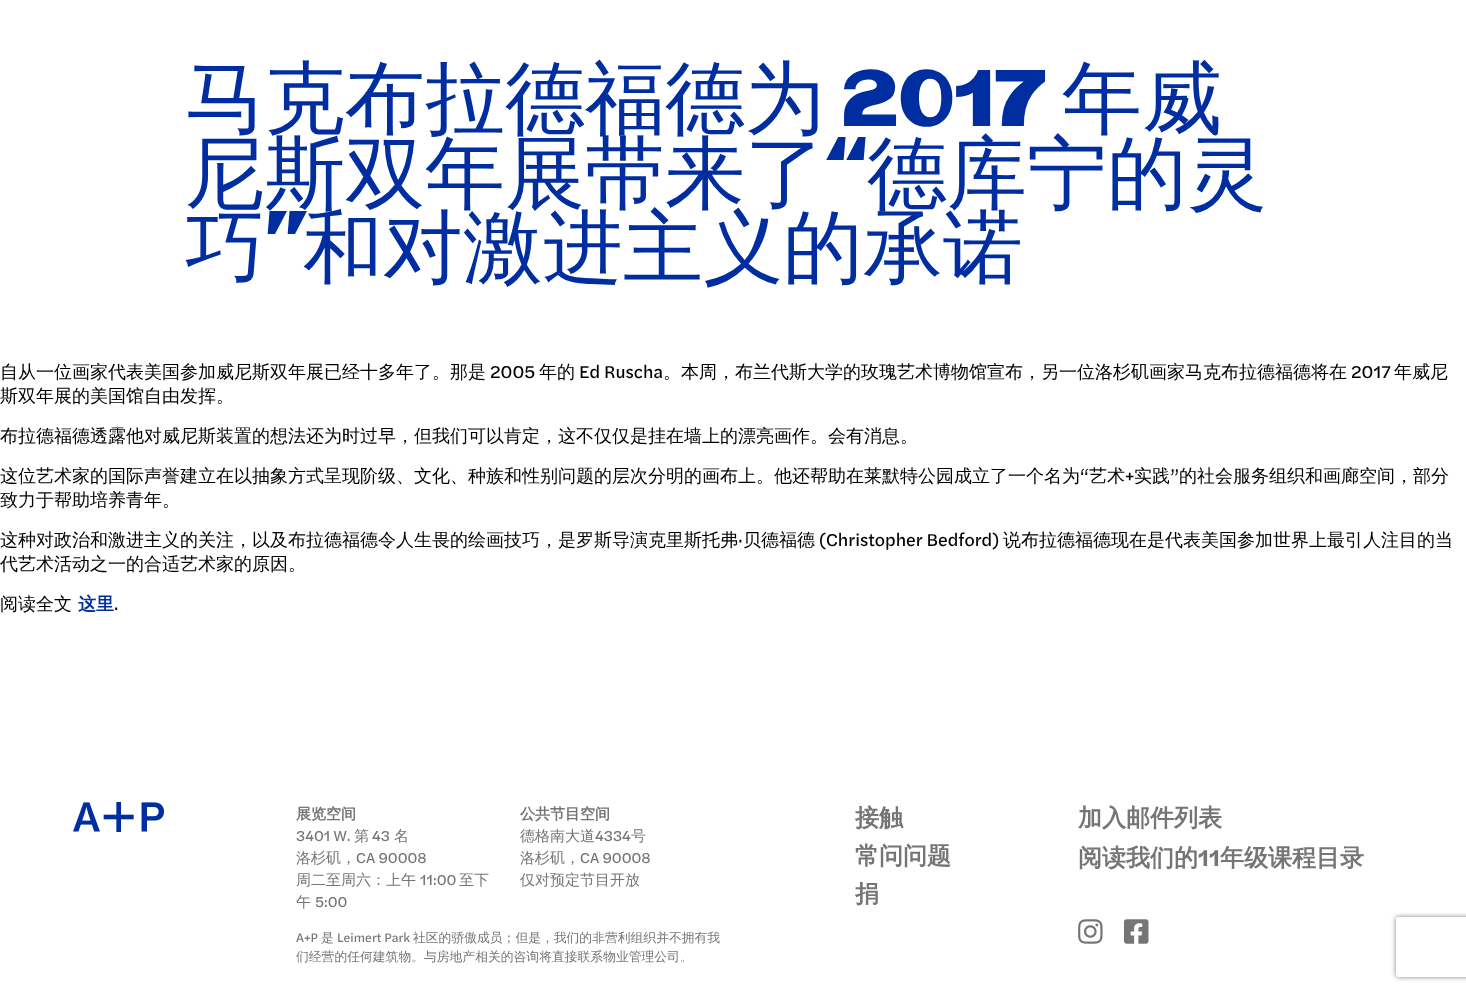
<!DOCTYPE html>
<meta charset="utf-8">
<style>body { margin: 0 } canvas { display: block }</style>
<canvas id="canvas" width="1466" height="991"></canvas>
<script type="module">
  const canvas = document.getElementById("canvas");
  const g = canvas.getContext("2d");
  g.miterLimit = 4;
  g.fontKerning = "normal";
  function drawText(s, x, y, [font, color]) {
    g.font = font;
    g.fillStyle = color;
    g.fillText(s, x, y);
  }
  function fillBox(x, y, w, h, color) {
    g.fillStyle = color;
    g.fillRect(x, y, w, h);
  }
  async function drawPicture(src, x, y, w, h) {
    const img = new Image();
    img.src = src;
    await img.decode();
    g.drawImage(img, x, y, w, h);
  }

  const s1 = ["500 80px WenQuanYi Zen Hei", "#002DA0"];
  const s2 = ["bold 80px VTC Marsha", "#002DA0"];
  const s3 = ["500 18px WenQuanYi Zen Hei", "#000000"];
  const s4 = ["18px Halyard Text", "#000000"];
  const s5 = ["bold 18px WenQuanYi Zen Hei", "#002DA0"];
  const s6 = ["bold 15px WenQuanYi Zen Hei", "#757575"];
  const s7 = ["15px Halyard Text", "#757575"];
  const s8 = ["500 15px WenQuanYi Zen Hei", "#757575"];
  const s9 = ["12.8px Halyard Text", "#757575"];
  const s10 = ["500 12.8px WenQuanYi Zen Hei", "#757575"];
  const s11 = ["bold 24px WenQuanYi Zen Hei", "#757575"];
  const s12 = ["600 24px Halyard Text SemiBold", "#757575"];

  fillBox(0, 0, 1466, 991, "#FFFFFF");
  drawText("马克布拉德福德为", 185, 126, s1);
  drawText("2017", 841, 126, s2);
  drawText("年威", 1062, 126, s1);
  drawText("尼斯双年展带来了", 185, 201, s1);
  drawText("“", 825, 201, s2);
  drawText("德库宁的灵", 867, 201, s1);
  drawText("巧", 185, 275, s1);
  drawText("”", 265, 275, s2);
  drawText("和对激进主义的承诺", 303, 275, s1);
  drawText("自从一位画家代表美国参加威尼斯双年展已经十多年了。那是", 0, 378, s3);
  drawText("2005", 490, 378, s4);
  drawText("年的", 539, 378, s3);
  drawText("Ed Ruscha", 579, 378, s4);
  drawText("。本周，布兰代斯大学的玫瑰艺术博物馆宣布，另一位洛杉矶画家马克布拉德福德将在", 663, 378, s3);
  drawText("2017", 1351, 378, s4);
  drawText("年威尼", 1394, 378, s3);
  drawText("斯双年展的美国馆自由发挥。", 0, 402, s3);
  drawText("布拉德福德透露他对威尼斯装置的想法还为时过早，但我们可以肯定，这不仅仅是挂在墙上的漂亮画作。会有消息。", 0, 442, s3);
  drawText("这位艺术家的国际声誉建立在以抽象方式呈现阶级、文化、种族和性别问题的层次分明的画布上。他还帮助在莱默特公园成立了一个名为", 0, 482, s3);
  drawText("“", 1080, 482, s4);
  drawText("艺术", 1089, 482, s3);
  drawText("+", 1125, 482, s4);
  drawText("实践", 1134, 482, s3);
  drawText("”", 1170, 482, s4);
  drawText("的社会服务组织和画廊空间，部分", 1179, 482, s3);
  drawText("致力于帮助培养青年。", 0, 506, s3);
  drawText("这种对政治和激进主义的关注，以及布拉德福德令人生畏的绘画技巧，是罗斯导演克里斯托弗", 0, 546, s3);
  drawText("·", 738, 546, s4);
  drawText("贝德福德", 743, 546, s3);
  drawText("(Christopher Bedford)", 819, 546, s4);
  drawText("说布拉德福德现在是代表美国参加世界上最引人注目的当", 1003, 546, s3);
  drawText("代艺术活动之一的合适艺术家的原因。", 0, 570, s3);
  drawText("阅读全文", 0, 610, s3);
  drawText("这里", 78, 610, s5);
  drawText(".", 114, 610, s4);
  await drawPicture("pic1.png", 73, 802, 91, 30);
  drawText("展览空间", 296, 819, s6);
  drawText("3401 W.", 296, 841, s7);
  drawText("第", 354, 841, s8);
  drawText("43", 372, 841, s7);
  drawText("名", 394, 841, s8);
  drawText("洛杉矶，", 296, 863, s8);
  drawText("CA 90008", 356, 863, s7);
  drawText("周二至周六：上午", 296, 885, s8);
  drawText("11:00", 420, 885, s7);
  drawText("至下", 459, 885, s8);
  drawText("午", 296, 907, s8);
  drawText("5:00", 315, 907, s7);
  drawText("公共节目空间", 520, 819, s6);
  drawText("德格南大道", 520, 841, s8);
  drawText("4334", 595, 841, s7);
  drawText("号", 631, 841, s8);
  drawText("洛杉矶，", 520, 863, s8);
  drawText("CA 90008", 580, 863, s7);
  drawText("仅对预定节目开放", 520, 885, s8);
  drawText("A+P", 296, 942, s9);
  drawText("是", 321, 942, s10);
  drawText("Leimert Park", 337, 942, s9);
  drawText("社区的骄傲成员；但是，我们的非营利组织并不拥有我", 413, 942, s10);
  drawText("们经营的任何建筑物。与房地产相关的咨询将直接联系物业管理公司。", 296, 961, s10);
  drawText("接触", 855, 826, s11);
  drawText("常问问题", 855, 864, s11);
  drawText("捐", 855, 902, s11);
  drawText("加入邮件列表", 1078, 826, s11);
  drawText("阅读我们的", 1078, 866, s11);
  drawText("11", 1198, 866, s12);
  drawText("年级课程目录", 1220, 866, s11);
  await drawPicture("pic2.png", 1078, 919, 25, 25);
  await drawPicture("pic3.png", 1124, 919, 25, 25);
  g.save();
  g.beginPath();
  g.moveTo(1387, 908);
  g.lineTo(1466, 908);
  g.lineTo(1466, 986);
  g.lineTo(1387, 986);
  g.closePath();
  g.moveTo(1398, 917);
  g.lineTo(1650, 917);
  g.bezierCurveTo(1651, 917, 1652, 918, 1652, 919);
  g.lineTo(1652, 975);
  g.bezierCurveTo(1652, 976, 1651, 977, 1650, 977);
  g.lineTo(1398, 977);
  g.bezierCurveTo(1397, 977, 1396, 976, 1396, 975);
  g.lineTo(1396, 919);
  g.bezierCurveTo(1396, 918, 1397, 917, 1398, 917);
  g.closePath();
  g.clip("evenodd");
  g.fillStyle = "#808080";
  g.filter = "blur(2.5px)";
  g.beginPath();
  g.roundRect(1396, 917, 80, 60, 2);
  g.fill();
  g.filter = "none";
  g.restore();
</script>
